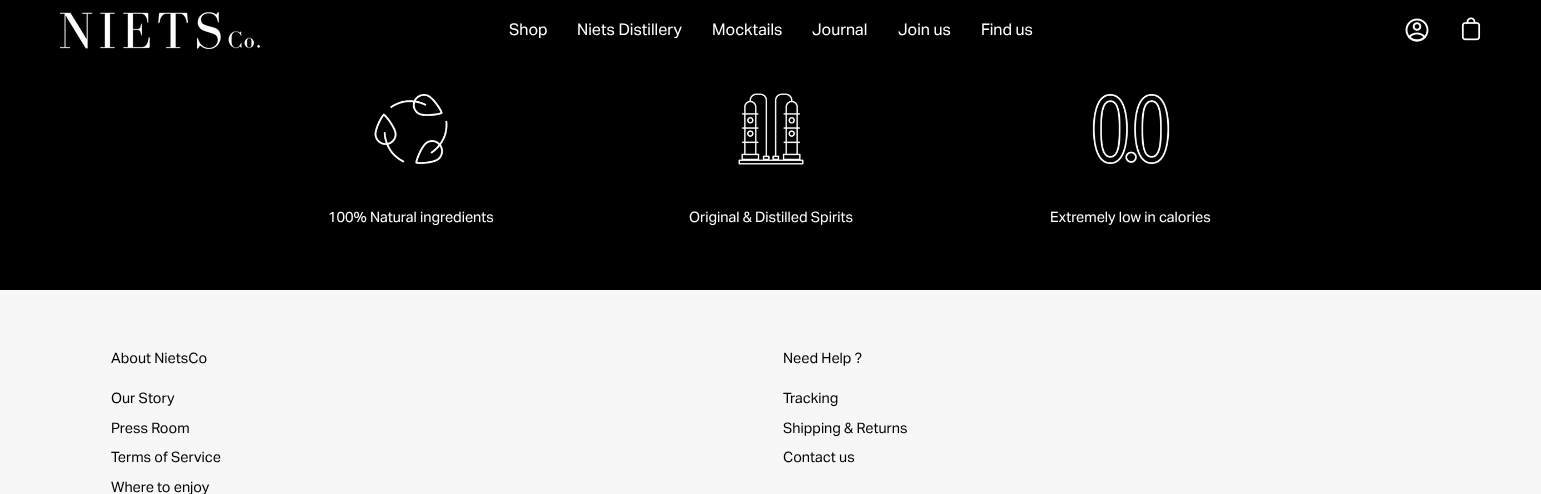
<!DOCTYPE html>
<meta charset="utf-8">
<style>body { margin: 0 } canvas { display: block }</style>
<canvas id="canvas" width="1541" height="494"></canvas>
<script type="module">
  const canvas = document.getElementById("canvas");
  const g = canvas.getContext("2d");
  g.miterLimit = 4;
  g.fontKerning = "normal";
  function drawText(s, x, y, [font, color]) {
    g.font = font;
    g.fillStyle = color;
    g.fillText(s, x, y);
  }
  function fillBox(x, y, w, h, color) {
    g.fillStyle = color;
    g.fillRect(x, y, w, h);
  }
  async function drawPicture(src, x, y, w, h) {
    const img = new Image();
    img.src = src;
    await img.decode();
    g.drawImage(img, x, y, w, h);
  }

  const s1 = ["16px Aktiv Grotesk", "#FFFFFF"];
  const s2 = ["14.4px Aktiv Grotesk", "#FFFFFF"];
  const s3 = ["14.4px Aktiv Grotesk", "#000000"];

  fillBox(0, 0, 1541, 494, "#F7F7F7");
  fillBox(0, 0, 1541, 290, "#000000");
  await drawPicture("pic1.png", 60, 12, 200, 37);
  drawText("Shop", 509, 35, s1);
  drawText("Niets Distillery", 577, 35, s1);
  drawText("Mocktails", 712, 35, s1);
  drawText("Journal", 812, 35, s1);
  drawText("Join us", 898, 35, s1);
  drawText("Find us", 981, 35, s1);
  await drawPicture("pic2.png", 1405, 18, 24, 24);
  await drawPicture("pic3.png", 1461, 17, 20, 24);
  await drawPicture("pic4.png", 374, 93, 74, 72);
  drawText("100% Natural ingredients", 328, 222, s2);
  await drawPicture("pic5.png", 738, 93, 66, 72);
  drawText("Original & Distilled Spirits", 689, 222, s2);
  await drawPicture("pic6.png", 1092, 93, 78, 72);
  drawText("Extremely low in calories", 1050, 222, s2);
  drawText("About NietsCo", 111, 363, s3);
  drawText("Our Story", 111, 403, s3);
  drawText("Press Room", 111, 433, s3);
  drawText("Terms of Service", 111, 462, s3);
  drawText("Where to enjoy", 111, 492, s3);
  drawText("Need Help ?", 783, 363, s3);
  drawText("Tracking", 783, 403, s3);
  drawText("Shipping & Returns", 783, 433, s3);
  drawText("Contact us", 783, 462, s3);
</script>
